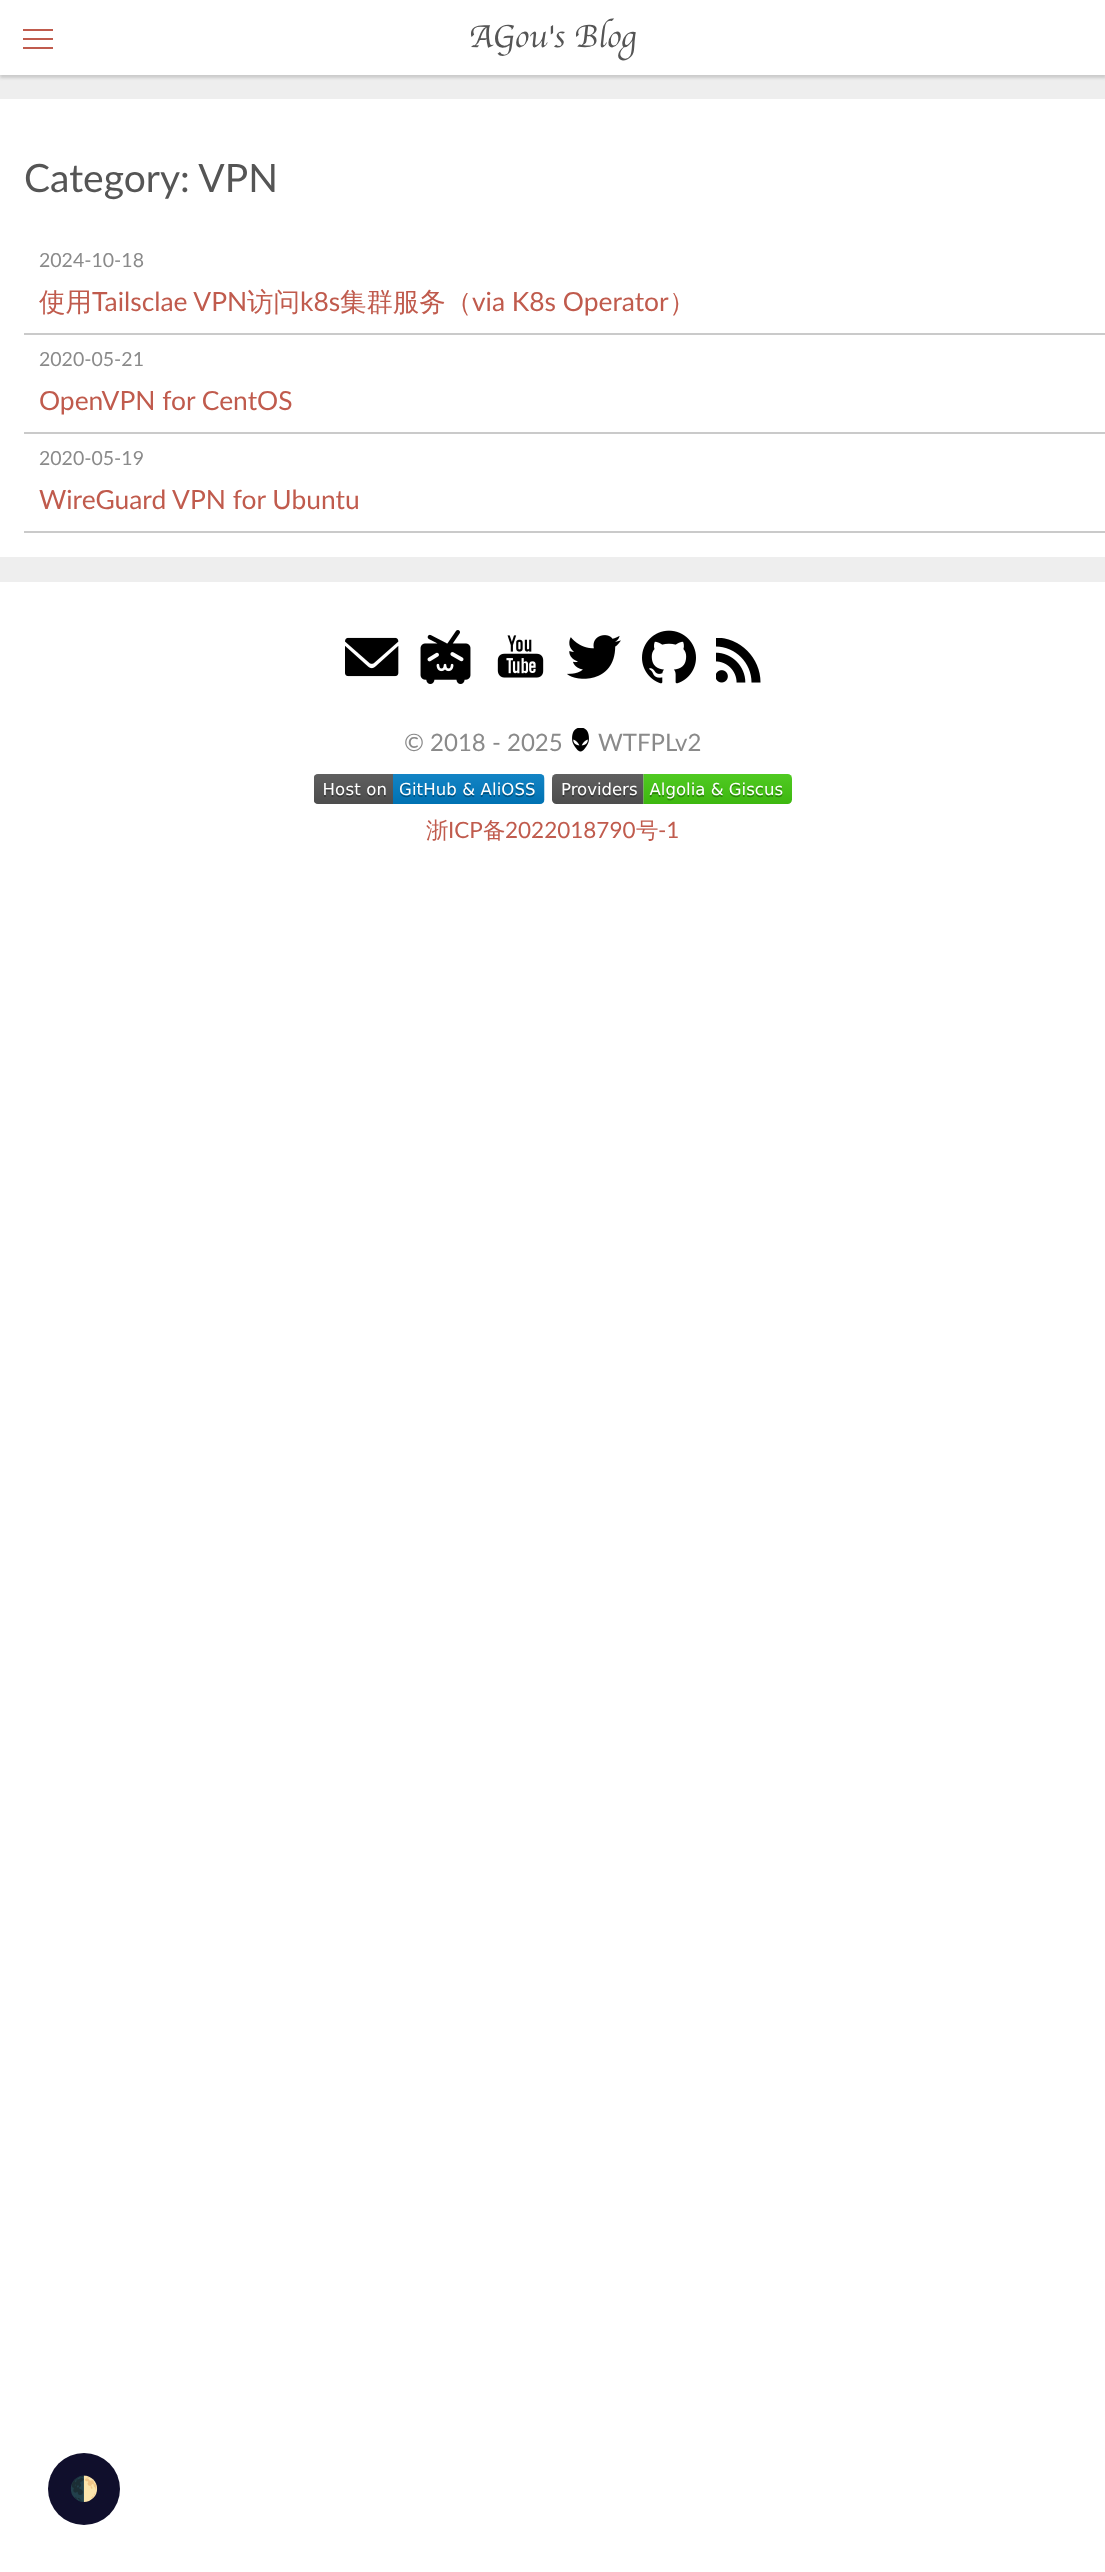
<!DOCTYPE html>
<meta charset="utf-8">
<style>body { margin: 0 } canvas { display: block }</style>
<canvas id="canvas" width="1105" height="2572"></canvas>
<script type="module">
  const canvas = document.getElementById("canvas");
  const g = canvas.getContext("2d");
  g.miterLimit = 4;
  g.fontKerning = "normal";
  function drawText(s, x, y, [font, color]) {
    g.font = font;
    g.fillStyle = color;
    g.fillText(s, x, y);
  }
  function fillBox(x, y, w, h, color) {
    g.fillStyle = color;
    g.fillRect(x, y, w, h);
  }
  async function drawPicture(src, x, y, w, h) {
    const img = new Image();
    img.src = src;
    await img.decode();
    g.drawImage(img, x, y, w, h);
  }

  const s1 = ["100 33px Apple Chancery", "#555555"];
  const s2 = ["39px Lato", "#555555"];
  const s3 = ["19.5px Lato", "#8A8A8A"];
  const s4 = ["500 26.4px WenQuanYi Zen Hei", "#C05B4D"];
  const s5 = ["26.4px Lato", "#C05B4D"];
  const s6 = ["24px Lato", "#8A8A8A"];
  const s7 = ["500 22.5px WenQuanYi Zen Hei", "#C05B4D"];
  const s8 = ["22.5px Lato", "#C05B4D"];
  const s9 = ["24px Noto Color Emoji", "#555555"];

  fillBox(0, 0, 1105, 2572, "#FFFFFF");
  fillBox(0, 75, 1105, 507, "#EEEEEE");
  g.save();
  g.beginPath();
  g.rect(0, 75, 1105, 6);
  g.clip();
  g.fillStyle = "#CACACA";
  g.filter = "blur(1.5px)";
  g.beginPath();
  g.rect(0, 3, 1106, 75);
  g.fill();
  g.filter = "none";
  g.restore();
  fillBox(23, 29, 30, 2, "#C05B4D");
  fillBox(23, 38, 30, 2, "#C05B4D");
  fillBox(23, 47, 30, 2, "#C05B4D");
  drawText("AGou's Blog", 469, 47, s1);
  fillBox(0, 99, 1105, 458, "#FFFFFF");
  drawText("Category: VPN", 24, 192, s2);
  fillBox(24, 333, 1081, 2, "#CACACA");
  drawText("2024-10-18", 39, 267, s3);
  drawText("使用", 39, 311, s4);
  drawText("Tailsclae VPN", 92, 311, s5);
  drawText("访问", 247, 311, s4);
  drawText("k8s", 300, 311, s5);
  drawText("集群服务（", 340, 311, s4);
  drawText("via K8s Operator", 472, 311, s5);
  drawText("）", 669, 311, s4);
  fillBox(24, 432, 1081, 2, "#CACACA");
  drawText("2020-05-21", 39, 366, s3);
  drawText("OpenVPN for CentOS", 39, 410, s5);
  fillBox(24, 531, 1081, 2, "#CACACA");
  drawText("2020-05-19", 39, 465, s3);
  drawText("WireGuard VPN for Ubuntu", 39, 509, s5);
  await drawPicture("pic1.png", 345, 637, 54, 40);
  await drawPicture("pic2.png", 420, 630, 51, 54);
  await drawPicture("pic3.png", 497, 635, 47, 43);
  await drawPicture("pic4.png", 567, 635, 54, 44);
  await drawPicture("pic5.png", 642, 630, 54, 54);
  await drawPicture("pic6.png", 716, 638, 45, 45);
  drawText("© 2018 - 2025", 404, 751, s6);
  await drawPicture("pic7.png", 572, 728, 17, 24);
  drawText("WTFPLv2", 598, 751, s6);
  await drawPicture("pic8.png", 314, 774, 231, 30);
  await drawPicture("pic9.png", 552, 774, 240, 30);
  drawText("浙", 426, 838, s7);
  drawText("ICP", 448, 838, s8);
  drawText("备", 483, 838, s7);
  drawText("2022018790", 505, 838, s8);
  drawText("号", 636, 838, s7);
  drawText("-1", 658, 838, s8);
  g.fillStyle = "#100F2C";
  g.beginPath();
  g.arc(84, 2489, 36, 0, Math.PI * 2);
  g.fill();
  drawText("🌓", 69, 2497, s9);
</script>
